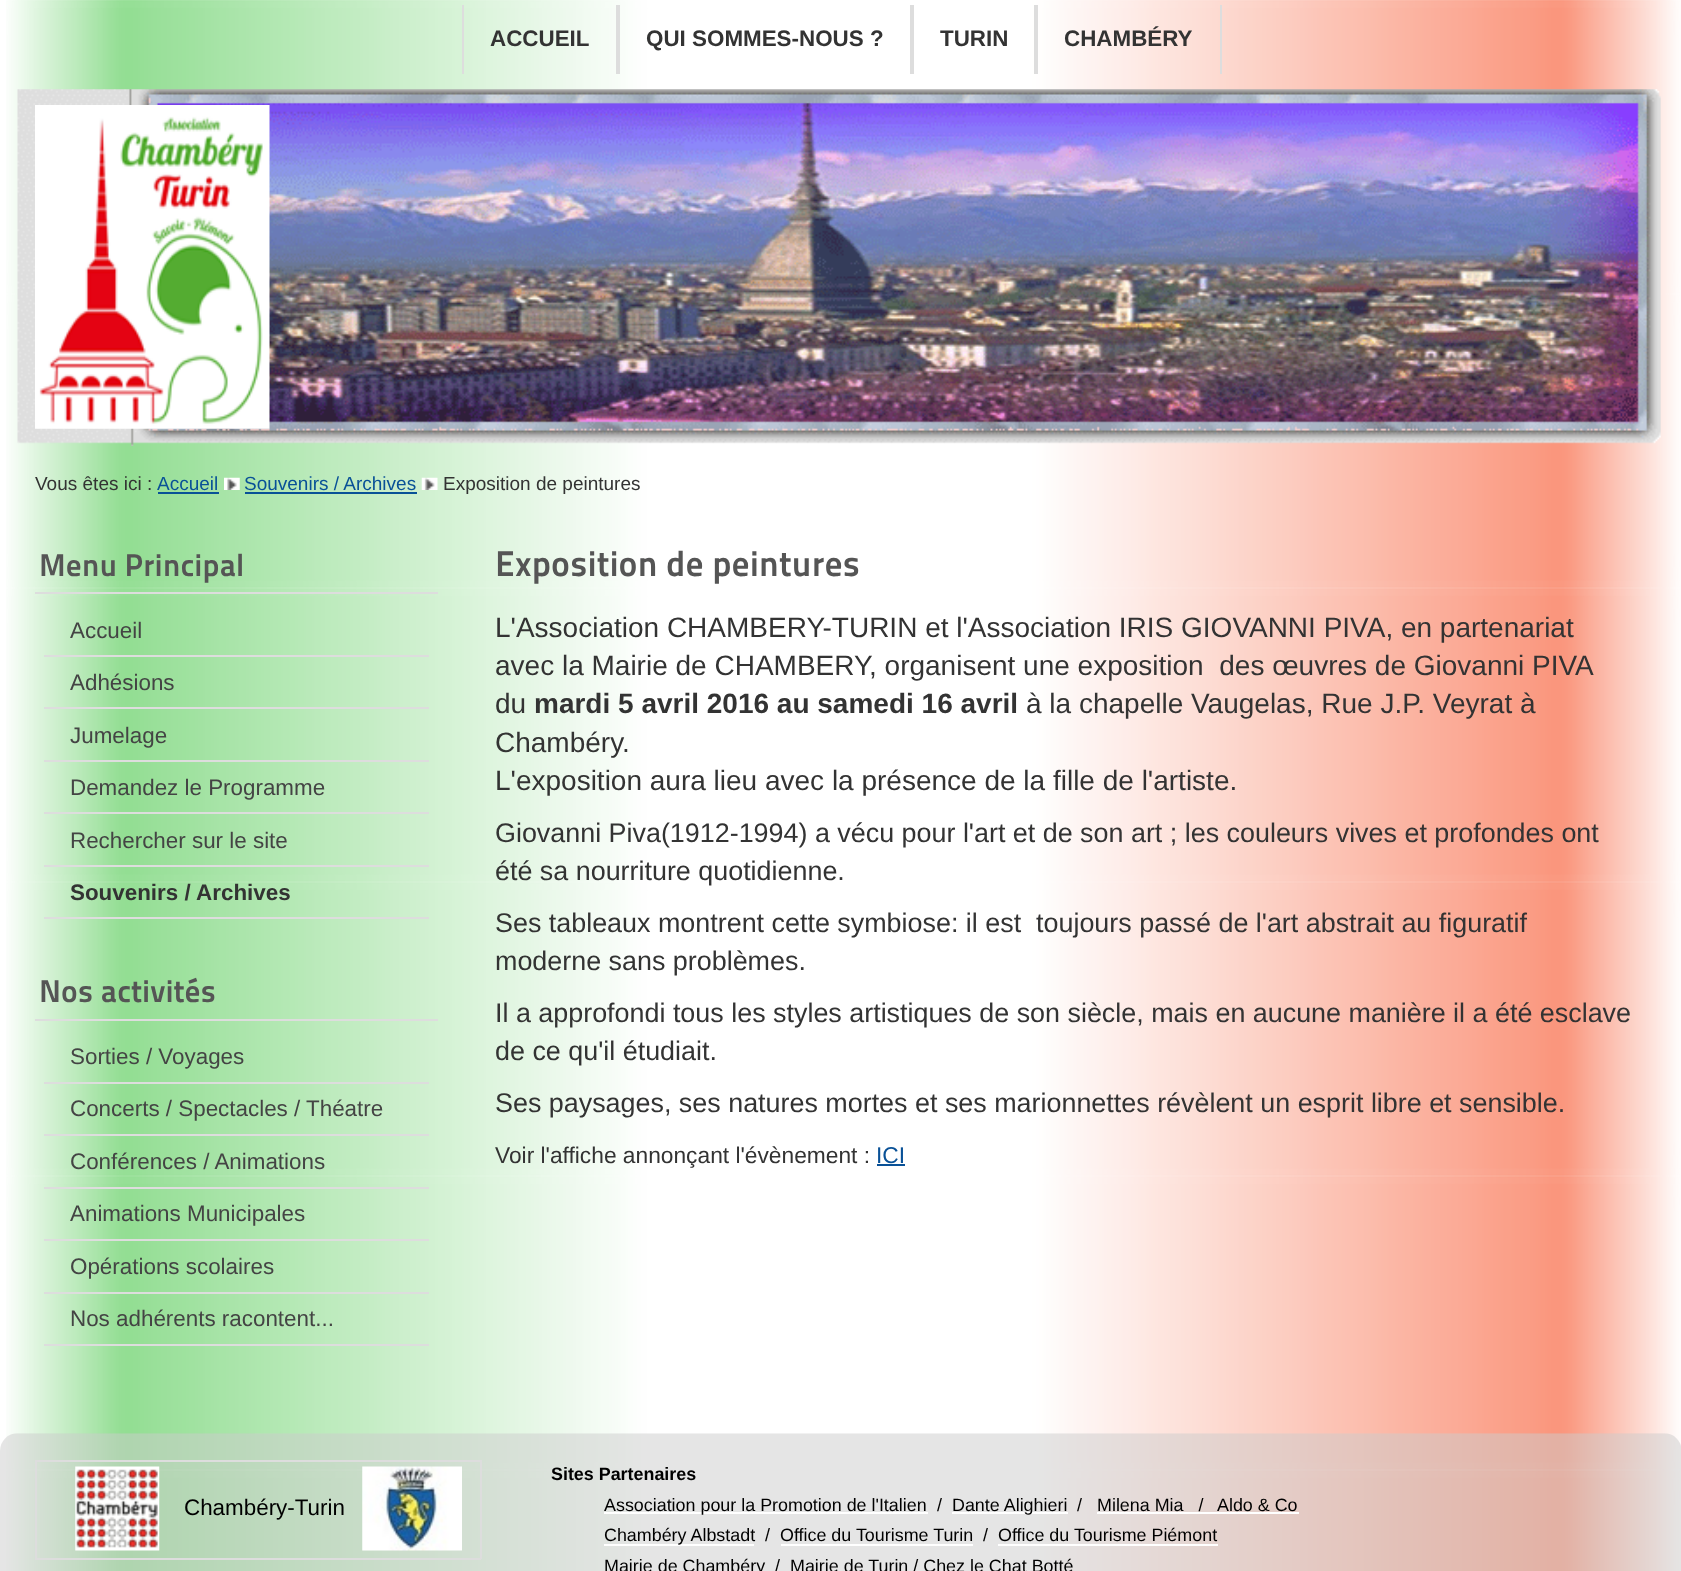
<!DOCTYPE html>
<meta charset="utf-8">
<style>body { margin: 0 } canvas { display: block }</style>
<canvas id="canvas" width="1681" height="1571"></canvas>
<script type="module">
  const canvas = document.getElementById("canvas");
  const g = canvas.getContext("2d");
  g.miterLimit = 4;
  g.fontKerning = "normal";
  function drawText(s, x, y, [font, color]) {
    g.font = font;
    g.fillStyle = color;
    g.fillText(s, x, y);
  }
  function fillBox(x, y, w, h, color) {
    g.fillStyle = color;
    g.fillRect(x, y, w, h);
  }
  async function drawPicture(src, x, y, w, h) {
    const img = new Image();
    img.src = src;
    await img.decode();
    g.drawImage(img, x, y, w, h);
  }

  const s1 = ["bold 22.4px Liberation Sans", "#333333"];
  const s2 = ["19px Liberation Sans", "#333333"];
  const s3 = ["19px Liberation Sans", "#095197"];
  const s4 = ["800 31.5px 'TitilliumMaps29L'", "#555555"];
  const s5 = ["22.4px Liberation Sans", "#444444"];
  const s6 = ["800 35.75px 'TitilliumMaps29L'", "#555555"];
  const s7 = ["28px Liberation Sans", "#333333"];
  const s8 = ["bold 28px Liberation Sans", "#333333"];
  const s9 = ["26.9px Liberation Sans", "#333333"];
  const s10 = ["22.75px Liberation Sans", "#333333"];
  const s11 = ["22.75px Liberation Sans", "#095197"];
  const s12 = ["22.4px Liberation Sans", "#000000"];
  const s13 = ["bold 17.9px Liberation Sans", "#000000"];
  const s14 = ["17.9px Liberation Sans", "#000000"];

  fillBox(0, 0, 1681, 1571, "#FFFFFF");
  await drawPicture("pic1.png", 6, 0, 1675, 1571);
  fillBox(616, 5, 4, 69, "#DDDDDD");
  fillBox(462, 5, 2, 69, "#DDDDDD");
  drawText("ACCUEIL", 490, 46, s1);
  fillBox(910, 5, 4, 69, "#DDDDDD");
  drawText("QUI SOMMES-NOUS ?", 646, 46, s1);
  fillBox(1034, 5, 4, 69, "#DDDDDD");
  drawText("TURIN", 940, 46, s1);
  fillBox(1220, 5, 2, 69, "#DDDDDD");
  drawText("CHAMBÉRY", 1064, 46, s1);
  await drawPicture("pic2.png", 17, 89, 1644, 357);
  await drawPicture("pic3.png", 35, 105, 235, 324);
  drawText("Vous êtes ici :", 35, 490, s2);
  drawText("Accueil", 157, 490, s3);
  fillBox(158, 492, 61, 2, "#095197");
  await drawPicture("pic4.png", 224, 477, 16, 13);
  drawText("Souvenirs / Archives", 244, 490, s3);
  fillBox(245, 492, 172, 2, "#095197");
  await drawPicture("pic5.png", 421, 477, 17, 13);
  drawText("Exposition de peintures", 443, 490, s2);
  fillBox(35, 592, 403, 2, "#DDDDDD");
  drawText("Menu Principal", 39, 576, s4);
  fillBox(44, 655, 385, 2, "#DDDDDD");
  drawText("Accueil", 70, 638, s5);
  fillBox(44, 707, 385, 2, "#DDDDDD");
  drawText("Adhésions", 70, 690, s5);
  fillBox(44, 760, 385, 2, "#DDDDDD");
  drawText("Jumelage", 70, 743, s5);
  fillBox(44, 812, 385, 2, "#DDDDDD");
  drawText("Demandez le Programme", 70, 795, s5);
  fillBox(44, 865, 385, 2, "#DDDDDD");
  drawText("Rechercher sur le site", 70, 848, s5);
  fillBox(44, 917, 385, 2, "#DDDDDD");
  drawText("Souvenirs / Archives", 70, 900, s1);
  fillBox(35, 1019, 403, 2, "#DDDDDD");
  drawText("Nos activités", 39, 1002, s4);
  fillBox(44, 1082, 385, 2, "#DDDDDD");
  drawText("Sorties / Voyages", 70, 1064, s5);
  fillBox(44, 1134, 385, 2, "#DDDDDD");
  drawText("Concerts / Spectacles / Théatre", 70, 1116, s5);
  fillBox(44, 1187, 385, 2, "#DDDDDD");
  drawText("Conférences / Animations", 70, 1169, s5);
  fillBox(44, 1239, 385, 2, "#DDDDDD");
  drawText("Animations Municipales", 70, 1221, s5);
  fillBox(44, 1292, 385, 2, "#DDDDDD");
  drawText("Opérations scolaires", 70, 1274, s5);
  fillBox(44, 1344, 385, 2, "#DDDDDD");
  drawText("Nos adhérents racontent...", 70, 1326, s5);
  drawText("Exposition de peintures", 495, 576, s6);
  drawText("L'Association CHAMBERY-TURIN et l'Association IRIS GIOVANNI PIVA, en partenariat", 495, 637, s7);
  drawText("avec la Mairie de CHAMBERY, organisent une exposition  des œuvres de Giovanni PIVA", 495, 675, s7);
  drawText("du", 495, 713, s7);
  drawText("mardi 5 avril 2016 au samedi 16 avril", 534, 713, s8);
  drawText("à la chapelle Vaugelas, Rue J.P. Veyrat à", 1026, 713, s7);
  drawText("Chambéry.", 495, 752, s7);
  drawText("L'exposition aura lieu avec la présence de la fille de l'artiste.", 495, 790, s7);
  drawText("Giovanni Piva(1912-1994) a vécu pour l'art et de son art ; les couleurs vives et profondes ont", 495, 842, s9);
  drawText("été sa nourriture quotidienne.", 495, 880, s9);
  drawText("Ses tableaux montrent cette symbiose: il est  toujours passé de l'art abstrait au figuratif", 495, 932, s9);
  drawText("moderne sans problèmes.", 495, 970, s9);
  drawText("Il a approfondi tous les styles artistiques de son siècle, mais en aucune manière il a été esclave", 495, 1022, s9);
  drawText("de ce qu'il étudiait.", 495, 1060, s9);
  drawText("Ses paysages, ses natures mortes et ses marionnettes révèlent un esprit libre et sensible.", 495, 1112, s9);
  drawText("Voir l'affiche annonçant l'évènement :", 495, 1163, s10);
  drawText("ICI", 876, 1163, s11);
  fillBox(877, 1164, 28, 2, "#095197");
  await drawPicture("pic6.png", 0, 1433, 1681, 138);
  fillBox(35, 1460, 446, 2, "#DDDDDD");
  fillBox(480, 1460, 2, 99, "#DDDDDD");
  fillBox(35, 1558, 446, 2, "#DDDDDD");
  fillBox(35, 1460, 2, 99, "#DDDDDD");
  await drawPicture("pic7.png", 75, 1466, 85, 85);
  drawText("Chambéry-Turin", 184, 1515, s12);
  await drawPicture("pic8.png", 362, 1466, 100, 85);
  drawText("Sites Partenaires", 551, 1480, s13);
  fillBox(604, 1512, 324, 2, "#FFFFFF");
  drawText("Association pour la Promotion de l'Italien", 604, 1511, s14);
  drawText("/", 937, 1511, s14);
  fillBox(952, 1512, 116, 2, "#FFFFFF");
  drawText("Dante Alighieri", 952, 1511, s14);
  drawText("/", 1077, 1511, s14);
  drawText("Milena Mia   /", 1097, 1511, s14);
  fillBox(1097, 1512, 202, 2, "#FFFFFF");
  drawText("Aldo & Co", 1217, 1511, s14);
  fillBox(604, 1544, 150, 2, "#FFFFFF");
  drawText("Chambéry Albstadt", 604, 1541, s14);
  drawText("/", 765, 1541, s14);
  drawText("Office du Tourisme Turin", 780, 1541, s14);
  fillBox(781, 1544, 192, 2, "#FFFFFF");
  drawText("/", 983, 1541, s14);
  drawText("Office du Tourisme Piémont", 998, 1541, s14);
  fillBox(998, 1544, 220, 2, "#FFFFFF");
  drawText("Mairie de Chambéry", 604, 1572, s14);
  drawText("/", 775, 1572, s14);
  drawText("Mairie de Turin / Chez le Chat Botté", 790, 1572, s14);
</script>
